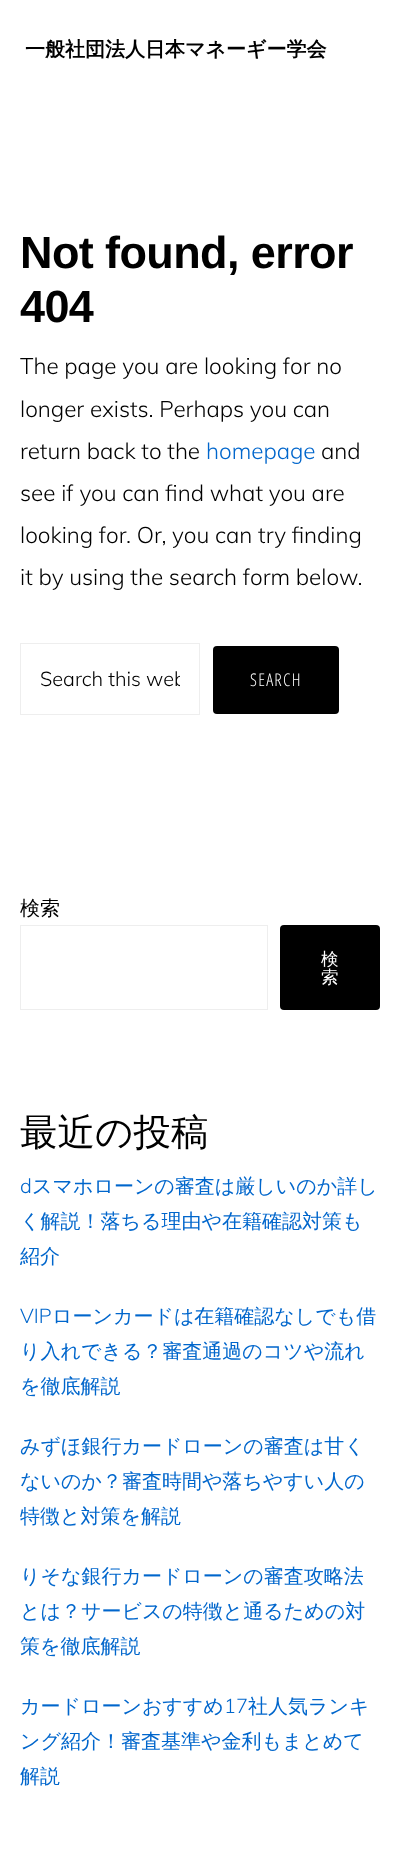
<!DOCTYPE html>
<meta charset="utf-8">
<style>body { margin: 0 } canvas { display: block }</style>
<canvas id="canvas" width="400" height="1852"></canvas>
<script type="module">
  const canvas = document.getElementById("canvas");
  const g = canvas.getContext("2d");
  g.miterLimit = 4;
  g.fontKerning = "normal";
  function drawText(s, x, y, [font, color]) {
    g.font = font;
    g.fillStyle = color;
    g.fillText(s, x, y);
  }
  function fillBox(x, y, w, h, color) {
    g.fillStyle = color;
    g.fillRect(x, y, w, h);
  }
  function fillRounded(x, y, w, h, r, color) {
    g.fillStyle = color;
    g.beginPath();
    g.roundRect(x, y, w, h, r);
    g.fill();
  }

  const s1 = ["bold 20px WenQuanYi Zen Hei", "#000000"];
  const s2 = ["bold 45px Liberation Sans", "#000000"];
  const s3 = ["300 22.5px Muli", "#000000"];
  const s4 = ["300 22.5px Muli", "#0066CC"];
  const s5 = ["300 20px Muli", "#000000"];
  const s6 = ["300 17.5px Open Sans Condensed", "#FFFFFF"];
  const s7 = ["500 20px WenQuanYi Zen Hei", "#000000"];
  const s8 = ["500 17.5px WenQuanYi Zen Hei", "#FFFFFF"];
  const s9 = ["500 37.5px WenQuanYi Zen Hei", "#000000"];
  const s10 = ["300 20px Muli", "#0066CC"];
  const s11 = ["500 20px WenQuanYi Zen Hei", "#0066CC"];

  fillBox(0, 0, 400, 1852, "#FFFFFF");
  drawText("一般社団法人日本マネーギー学会", 25, 56, s1);
  g.letterSpacing = "-0.6px";
  drawText("Not found, error", 20, 268, s2);
  drawText("404", 20, 322, s2);
  g.letterSpacing = "0px";
  drawText("The page you are looking for no", 20, 374, s3);
  drawText("longer exists. Perhaps you can", 20, 417, s3);
  drawText("return back to the", 20, 459, s3);
  drawText("homepage", 206, 459, s4);
  drawText("and", 321, 459, s3);
  drawText("see if you can find what you are", 20, 501, s3);
  drawText("looking for. Or, you can try finding", 20, 543, s3);
  drawText("it by using the search form below.", 20, 585, s3);
  g.strokeStyle = "#EEEEEE";
  g.strokeRect(20.5, 643.5, 179, 71);
  g.save();
  g.beginPath();
  g.rect(40, 666, 140, 25);
  g.clip();
  drawText("Search this web", 40, 686, s5);
  g.restore();
  fillRounded(213, 646, 126, 68, 4, "#000000");
  g.letterSpacing = "1.25px";
  drawText("SEARCH", 250, 686, s6);
  g.letterSpacing = "0px";
  drawText("検索", 20, 915, s7);
  g.strokeRect(20.5, 925.5, 247, 84);
  fillRounded(280, 925, 100, 85, 4, "#000000");
  g.letterSpacing = "1.25px";
  drawText("検", 321, 965, s8);
  drawText("索", 321, 983, s8);
  g.letterSpacing = "0px";
  drawText("最近の投稿", 20, 1145, s9);
  drawText("d", 20, 1193, s10);
  drawText("スマホローンの審査は厳しいのか詳し", 32, 1193, s11);
  drawText("く解説！落ちる理由や在籍確認対策も", 20, 1228, s11);
  drawText("紹介", 20, 1263, s11);
  drawText("VIP", 20, 1323, s10);
  drawText("ローンカードは在籍確認なしでも借", 52, 1323, s11);
  drawText("り入れできる？審査通過のコツや流れ", 20, 1358, s11);
  drawText("を徹底解説", 20, 1393, s11);
  drawText("みずほ銀行カードローンの審査は甘く", 20, 1453, s11);
  drawText("ないのか？審査時間や落ちやすい人の", 20, 1488, s11);
  drawText("特徴と対策を解説", 20, 1523, s11);
  drawText("りそな銀行カードローンの審査攻略法", 20, 1583, s11);
  drawText("とは？サービスの特徴と通るための対", 20, 1618, s11);
  drawText("策を徹底解説", 20, 1653, s11);
  drawText("カードローンおすすめ", 20, 1713, s11);
  drawText("17", 224, 1713, s10);
  drawText("社人気ランキ", 248, 1713, s11);
  drawText("ング紹介！審査基準や金利もまとめて", 20, 1748, s11);
  drawText("解説", 20, 1783, s11);
</script>
